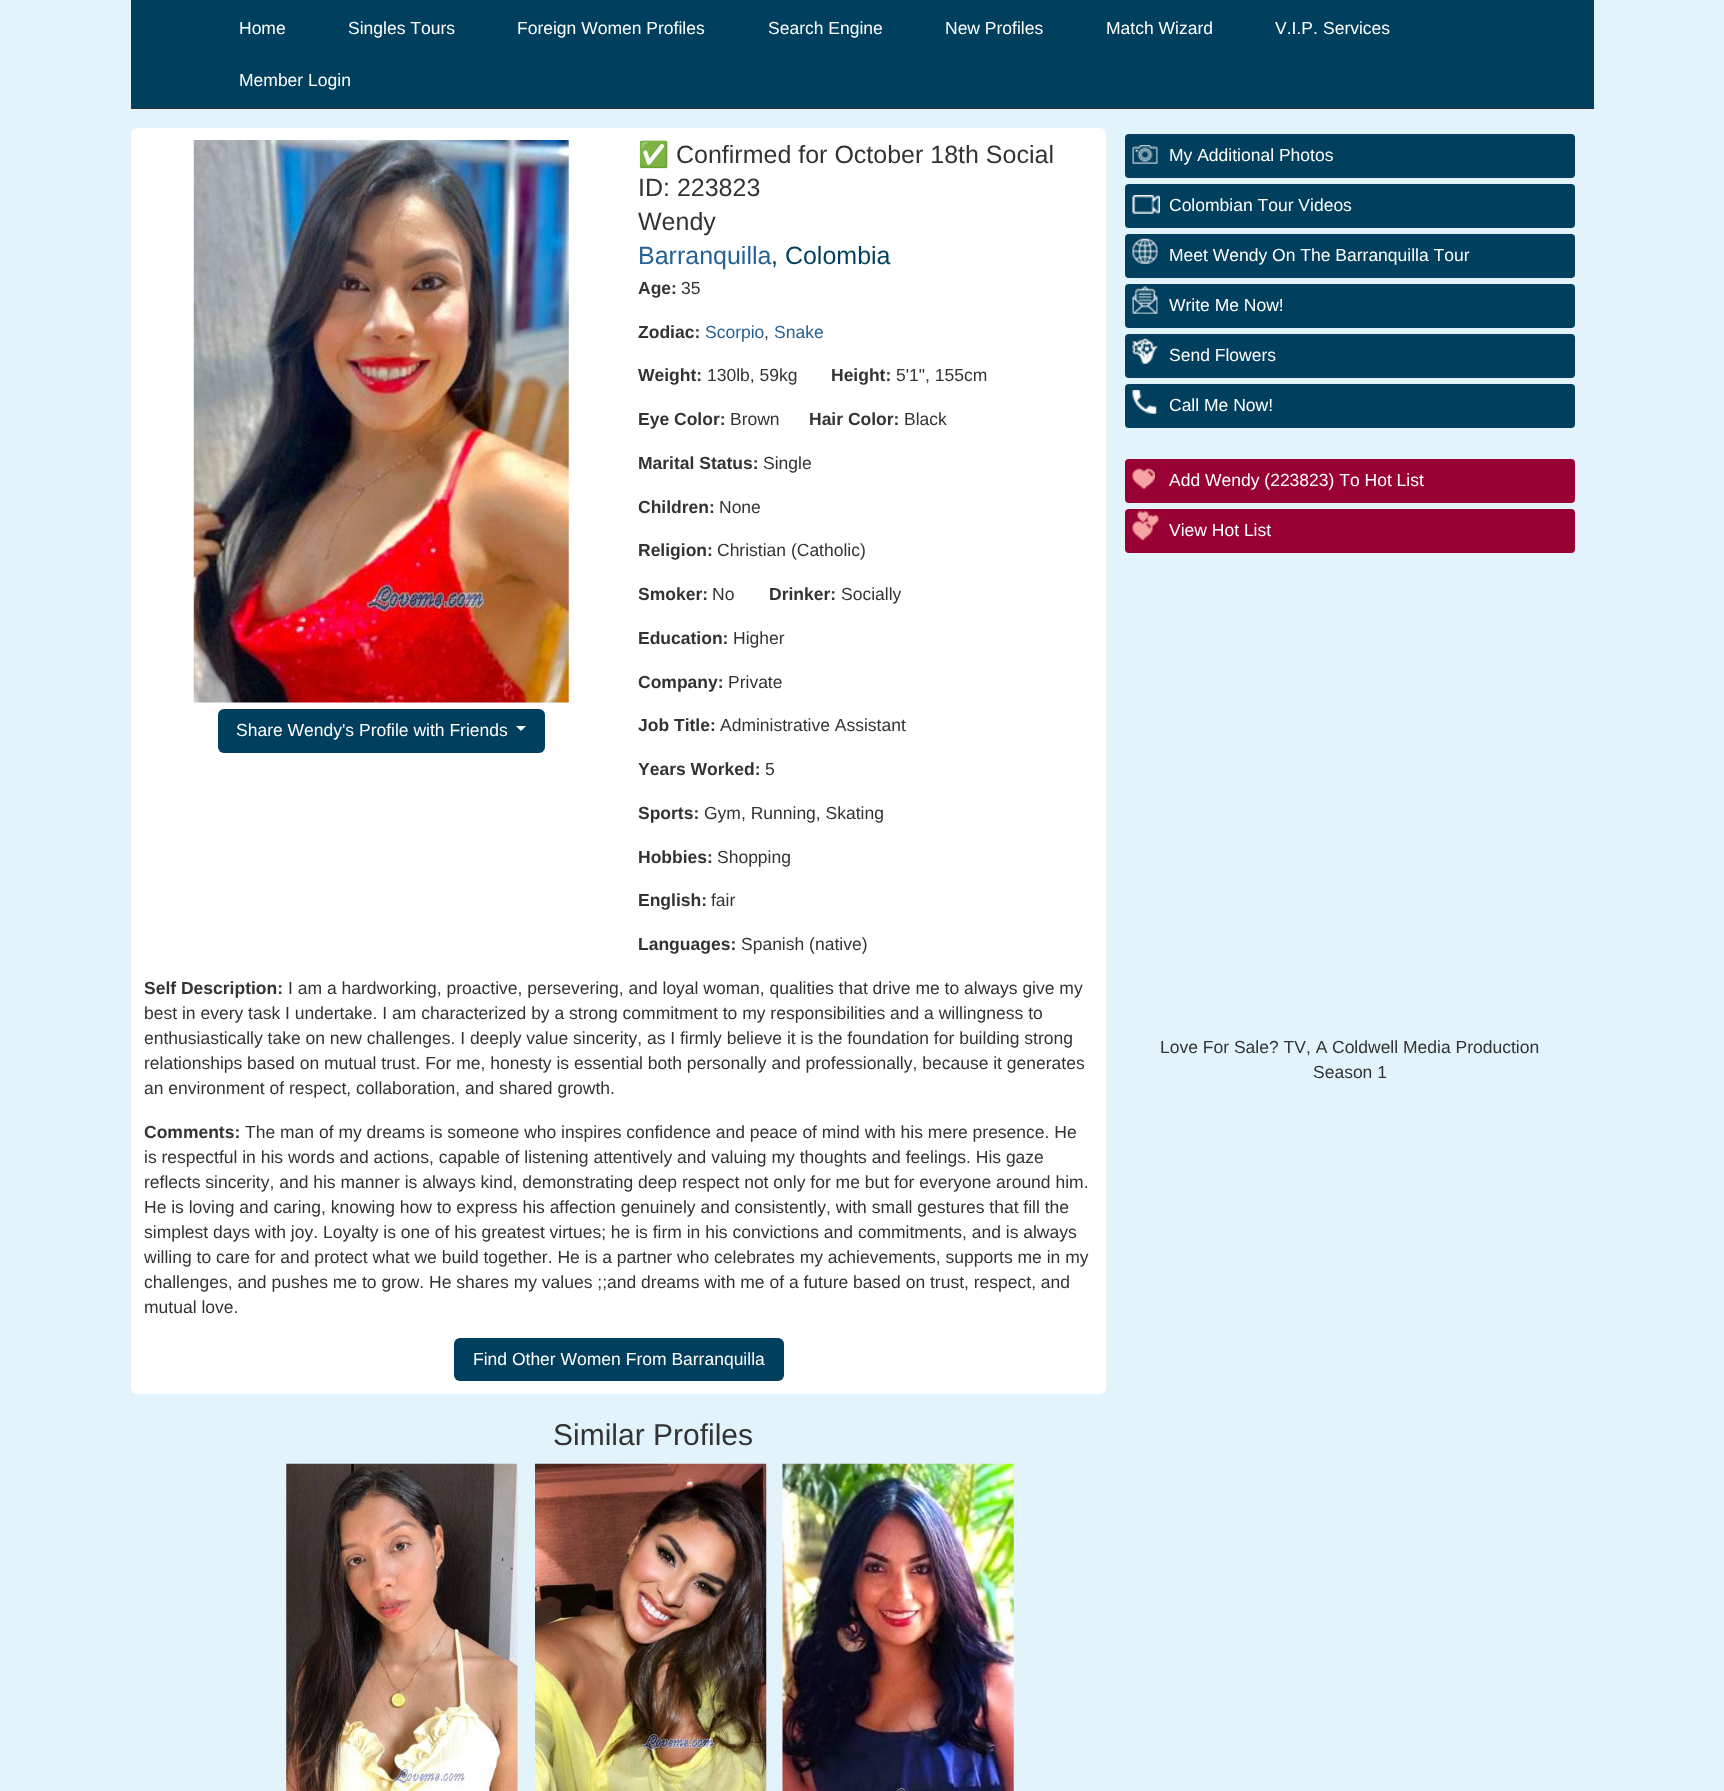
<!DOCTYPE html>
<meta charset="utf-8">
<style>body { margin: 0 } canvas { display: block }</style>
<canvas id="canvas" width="1724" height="1791"></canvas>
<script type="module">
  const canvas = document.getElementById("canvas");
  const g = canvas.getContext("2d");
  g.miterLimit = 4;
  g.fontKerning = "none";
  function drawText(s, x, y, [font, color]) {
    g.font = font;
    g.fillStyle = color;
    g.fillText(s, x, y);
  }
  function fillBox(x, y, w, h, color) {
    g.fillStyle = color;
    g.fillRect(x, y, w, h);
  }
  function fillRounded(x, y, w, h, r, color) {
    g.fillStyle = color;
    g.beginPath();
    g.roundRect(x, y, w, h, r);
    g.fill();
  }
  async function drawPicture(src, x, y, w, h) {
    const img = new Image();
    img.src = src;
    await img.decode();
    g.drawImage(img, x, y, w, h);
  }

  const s1 = ["17.5px Liberation Sans", "#FFFFFF"];
  const s2 = ["25px Noto Color Emoji", "#333333"];
  const s3 = ["25px Liberation Sans", "#333333"];
  const s4 = ["25px Liberation Sans", "#276294"];
  const s5 = ["25px Liberation Sans", "#003F5E"];
  const s6 = ["bold 17.5px Liberation Sans", "#333333"];
  const s7 = ["17.5px Liberation Sans", "#333333"];
  const s8 = ["17.5px Liberation Sans", "#276294"];
  const s9 = ["30px Liberation Sans", "#333333"];

  fillBox(0, 0, 1724, 1791, "#E2F3FB");
  fillBox(131, 0, 1463, 108, "#003F5E");
  fillBox(131, 108, 1463, 1, "#333333");
  drawText("Home", 239, 34, s1);
  drawText("Singles Tours", 348, 34, s1);
  drawText("Foreign Women Profiles", 517, 34, s1);
  drawText("Search Engine", 768, 34, s1);
  drawText("New Profiles", 945, 34, s1);
  drawText("Match Wizard", 1106, 34, s1);
  drawText("V.I.P.", 1275, 34, s1);
  drawText("Services", 1323, 34, s1);
  drawText("Member Login", 239, 86, s1);
  fillRounded(131, 128, 975, 1266, 6, "#FFFFFF");
  await drawPicture("pic1.png", 193, 140, 376, 563);
  fillRounded(218, 709, 327, 44, 6, "#003F5E");
  drawText("Share Wendy's Profile with Friends", 236, 736, s1);
  g.beginPath();
  g.moveTo(516, 726);
  g.lineTo(526, 726);
  g.lineTo(521, 731);
  g.closePath();
  g.fill();
  drawText("✅", 638, 163, s2);
  drawText("Confirmed for October 18th Social", 676, 163, s3);
  drawText("ID: 223823", 638, 196, s3);
  drawText("Wendy", 638, 230, s3);
  drawText("Barranquilla", 638, 264, s4);
  drawText(", Colombia", 771, 264, s5);
  drawText("Age:", 638, 294, s6);
  drawText("35", 681, 294, s7);
  drawText("Zodiac:", 638, 338, s6);
  drawText("Scorpio", 705, 338, s8);
  drawText(",", 764, 338, s7);
  drawText("Snake", 774, 338, s8);
  drawText("Weight:", 638, 381, s6);
  drawText("130lb, 59kg", 707, 381, s7);
  drawText("Height:", 831, 381, s6);
  drawText("5'1\", 155cm", 896, 381, s7);
  drawText("Eye Color:", 638, 425, s6);
  drawText("Brown", 730, 425, s7);
  drawText("Hair Color:", 809, 425, s6);
  drawText("Black", 904, 425, s7);
  drawText("Marital Status:", 638, 469, s6);
  drawText("Single", 763, 469, s7);
  drawText("Children:", 638, 513, s6);
  drawText("None", 719, 513, s7);
  drawText("Religion:", 638, 556, s6);
  drawText("Christian (Catholic)", 717, 556, s7);
  drawText("Smoker:", 638, 600, s6);
  drawText("No", 712, 600, s7);
  drawText("Drinker:", 769, 600, s6);
  drawText("Socially", 841, 600, s7);
  drawText("Education:", 638, 644, s6);
  drawText("Higher", 733, 644, s7);
  drawText("Company:", 638, 688, s6);
  drawText("Private", 728, 688, s7);
  drawText("Job Title:", 638, 731, s6);
  drawText("Administrative Assistant", 720, 731, s7);
  drawText("Years Worked:", 638, 775, s6);
  drawText("5", 765, 775, s7);
  drawText("Sports:", 638, 819, s6);
  drawText("Gym, Running, Skating", 704, 819, s7);
  drawText("Hobbies:", 638, 863, s6);
  drawText("Shopping", 717, 863, s7);
  drawText("English:", 638, 906, s6);
  drawText("fair", 711, 906, s7);
  drawText("Languages:", 638, 950, s6);
  drawText("Spanish (native)", 741, 950, s7);
  drawText("Self Description:", 144, 994, s6);
  drawText("I am a hardworking, proactive, persevering, and loyal woman, qualities that drive me to always give my", 288, 994, s7);
  drawText("best in every task I undertake. I am characterized by a strong commitment to my responsibilities and a willingness to", 144, 1019, s7);
  drawText("enthusiastically take on new challenges. I deeply value sincerity, as I firmly believe it is the foundation for building strong", 144, 1044, s7);
  drawText("relationships based on mutual trust. For me, honesty is essential both personally and professionally, because it generates", 144, 1069, s7);
  drawText("an environment of respect, collaboration, and shared growth.", 144, 1094, s7);
  drawText("Comments:", 144, 1138, s6);
  drawText("The man of my dreams is someone who inspires confidence and peace of mind with his mere presence. He", 245, 1138, s7);
  drawText("is respectful in his words and actions, capable of listening attentively and valuing my thoughts and feelings. His gaze", 144, 1163, s7);
  drawText("reflects sincerity, and his manner is always kind, demonstrating deep respect not only for me but for everyone around him.", 144, 1188, s7);
  drawText("He is loving and caring, knowing how to express his affection genuinely and consistently, with small gestures that fill the", 144, 1213, s7);
  drawText("simplest days with joy. Loyalty is one of his greatest virtues; he is firm in his convictions and commitments, and is always", 144, 1238, s7);
  drawText("willing to care for and protect what we build together. He is a partner who celebrates my achievements, supports me in my", 144, 1263, s7);
  drawText("challenges, and pushes me to grow. He shares my values ;;and dreams with me of a future based on trust, respect, and", 144, 1288, s7);
  drawText("mutual love.", 144, 1313, s7);
  fillRounded(454, 1338, 330, 43, 6, "#003F5E");
  drawText("Find Other Women From Barranquilla", 473, 1365, s1);
  drawText("Similar Profiles", 553, 1445, s9);
  await drawPicture("pic2.png", 286, 1463, 232, 328);
  await drawPicture("pic3.png", 535, 1463, 232, 328);
  await drawPicture("pic4.png", 782, 1463, 232, 328);
  fillRounded(1125, 134, 450, 44, 4, "#003F5E");
  await drawPicture("pic5.png", 1132, 145, 26, 19);
  drawText("My Additional Photos", 1169, 161, s1);
  fillRounded(1125, 184, 450, 44, 4, "#003F5E");
  await drawPicture("pic6.png", 1132, 195, 28, 19);
  drawText("Colombian Tour Videos", 1169, 211, s1);
  fillRounded(1125, 234, 450, 44, 4, "#003F5E");
  await drawPicture("pic7.png", 1132, 238, 26, 26);
  drawText("Meet Wendy On The Barranquilla Tour", 1169, 261, s1);
  fillRounded(1125, 284, 450, 44, 4, "#003F5E");
  await drawPicture("pic8.png", 1132, 286, 26, 28);
  drawText("Write Me Now!", 1169, 311, s1);
  fillRounded(1125, 334, 450, 44, 4, "#003F5E");
  await drawPicture("pic9.png", 1132, 338, 26, 26);
  drawText("Send Flowers", 1169, 361, s1);
  fillRounded(1125, 384, 450, 44, 4, "#003F5E");
  await drawPicture("pic10.png", 1132, 390, 25, 24);
  drawText("Call Me Now!", 1169, 411, s1);
  fillRounded(1125, 459, 450, 44, 4, "#990033");
  await drawPicture("pic11.png", 1132, 468, 23, 21);
  drawText("Add Wendy (223823) To Hot List", 1169, 486, s1);
  fillRounded(1125, 509, 450, 44, 4, "#990033");
  await drawPicture("pic12.png", 1132, 511, 27, 29);
  drawText("View Hot List", 1169, 536, s1);
  drawText("Love For Sale? TV, A", 1160, 1053, s7);
  drawText("Coldwell Media Production", 1332, 1053, s7);
  drawText("Season 1", 1313, 1078, s7);
</script>
